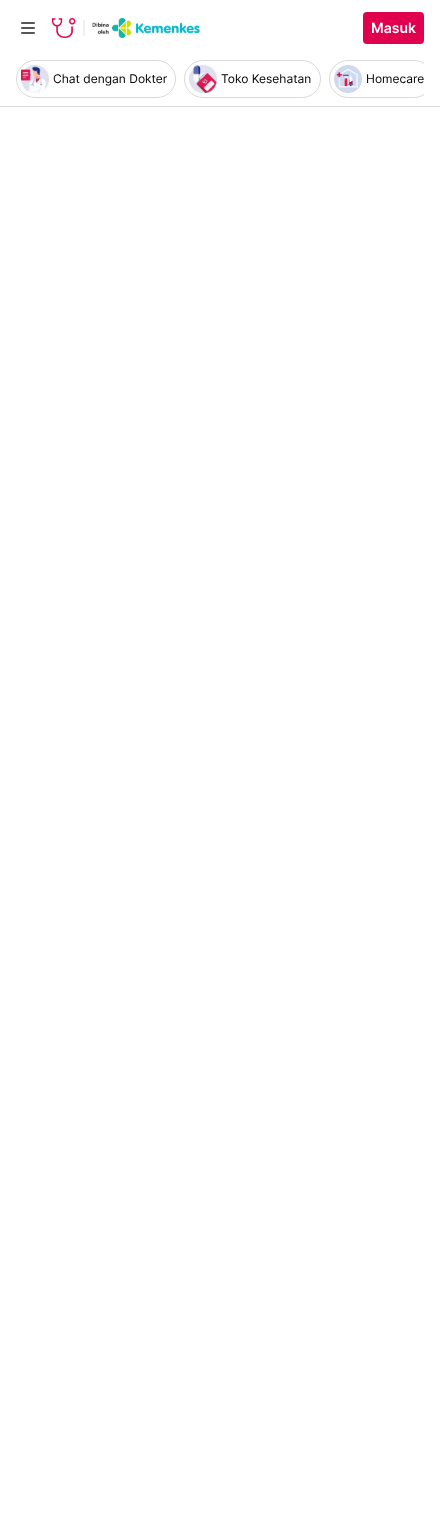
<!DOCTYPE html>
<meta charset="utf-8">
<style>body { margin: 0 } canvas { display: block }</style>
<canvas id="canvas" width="440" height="1540"></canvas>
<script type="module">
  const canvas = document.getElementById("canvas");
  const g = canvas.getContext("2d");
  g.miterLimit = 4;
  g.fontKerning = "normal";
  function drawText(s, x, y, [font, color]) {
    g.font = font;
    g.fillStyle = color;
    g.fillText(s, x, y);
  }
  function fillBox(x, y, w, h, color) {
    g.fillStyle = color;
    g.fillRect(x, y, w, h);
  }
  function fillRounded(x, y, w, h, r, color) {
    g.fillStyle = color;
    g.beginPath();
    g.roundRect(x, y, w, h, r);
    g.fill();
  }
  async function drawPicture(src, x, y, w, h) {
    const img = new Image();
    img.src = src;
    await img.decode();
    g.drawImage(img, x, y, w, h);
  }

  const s1 = ["600 14px Inter", "#FFFFFF"];
  const s2 = ["12px Inter", "#000000"];

  fillBox(0, 0, 440, 1540, "#FFFFFF");
  fillBox(0, 106, 440, 1, "#D9D9D9");
  fillRounded(21, 22, 14, 2, 1, "#53565A");
  fillRounded(21, 27, 14, 2, 1, "#53565A");
  fillRounded(21, 32, 14, 2, 1, "#53565A");
  await drawPicture("pic1.png", 52, 18, 148, 20);
  fillRounded(363, 12, 61, 32, 4, "#E0004D");
  drawText("Masuk", 371, 33, s1);
  g.beginPath();
  g.roundRect(16.5, 60.5, 159, 37, 18.5);
  g.strokeStyle = "#D9D9D9";
  g.stroke();
  await drawPicture("pic2.png", 21, 65, 28, 28);
  drawText("Chat dengan Dokter", 53, 83, s2);
  g.beginPath();
  g.roundRect(184.5, 60.5, 136, 37, 18.5);
  g.stroke();
  await drawPicture("pic3.png", 189, 65, 28, 28);
  drawText("Toko Kesehatan", 221, 83, s2);
  g.save();
  g.beginPath();
  g.rect(16, 60, 408, 38);
  g.clip();
  g.beginPath();
  g.roundRect(329.5, 60.5, 103, 37, 18.5);
  g.stroke();
  g.restore();
  await drawPicture("pic4.png", 334, 65, 28, 28);
  drawText("Homecare", 366, 83, s2);
</script>
